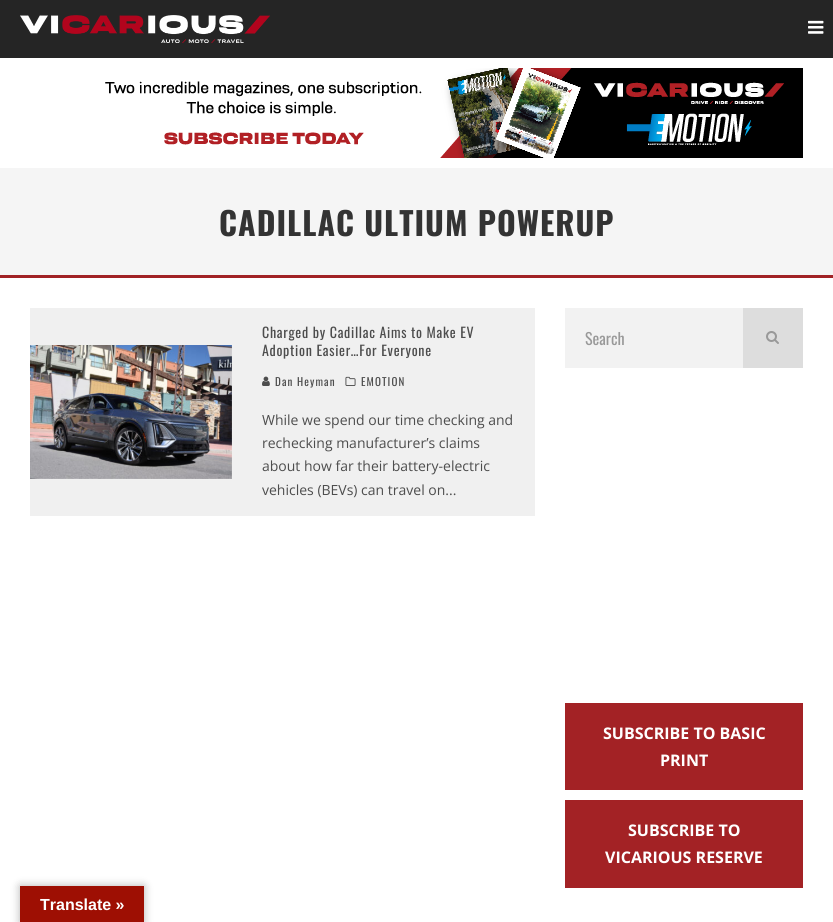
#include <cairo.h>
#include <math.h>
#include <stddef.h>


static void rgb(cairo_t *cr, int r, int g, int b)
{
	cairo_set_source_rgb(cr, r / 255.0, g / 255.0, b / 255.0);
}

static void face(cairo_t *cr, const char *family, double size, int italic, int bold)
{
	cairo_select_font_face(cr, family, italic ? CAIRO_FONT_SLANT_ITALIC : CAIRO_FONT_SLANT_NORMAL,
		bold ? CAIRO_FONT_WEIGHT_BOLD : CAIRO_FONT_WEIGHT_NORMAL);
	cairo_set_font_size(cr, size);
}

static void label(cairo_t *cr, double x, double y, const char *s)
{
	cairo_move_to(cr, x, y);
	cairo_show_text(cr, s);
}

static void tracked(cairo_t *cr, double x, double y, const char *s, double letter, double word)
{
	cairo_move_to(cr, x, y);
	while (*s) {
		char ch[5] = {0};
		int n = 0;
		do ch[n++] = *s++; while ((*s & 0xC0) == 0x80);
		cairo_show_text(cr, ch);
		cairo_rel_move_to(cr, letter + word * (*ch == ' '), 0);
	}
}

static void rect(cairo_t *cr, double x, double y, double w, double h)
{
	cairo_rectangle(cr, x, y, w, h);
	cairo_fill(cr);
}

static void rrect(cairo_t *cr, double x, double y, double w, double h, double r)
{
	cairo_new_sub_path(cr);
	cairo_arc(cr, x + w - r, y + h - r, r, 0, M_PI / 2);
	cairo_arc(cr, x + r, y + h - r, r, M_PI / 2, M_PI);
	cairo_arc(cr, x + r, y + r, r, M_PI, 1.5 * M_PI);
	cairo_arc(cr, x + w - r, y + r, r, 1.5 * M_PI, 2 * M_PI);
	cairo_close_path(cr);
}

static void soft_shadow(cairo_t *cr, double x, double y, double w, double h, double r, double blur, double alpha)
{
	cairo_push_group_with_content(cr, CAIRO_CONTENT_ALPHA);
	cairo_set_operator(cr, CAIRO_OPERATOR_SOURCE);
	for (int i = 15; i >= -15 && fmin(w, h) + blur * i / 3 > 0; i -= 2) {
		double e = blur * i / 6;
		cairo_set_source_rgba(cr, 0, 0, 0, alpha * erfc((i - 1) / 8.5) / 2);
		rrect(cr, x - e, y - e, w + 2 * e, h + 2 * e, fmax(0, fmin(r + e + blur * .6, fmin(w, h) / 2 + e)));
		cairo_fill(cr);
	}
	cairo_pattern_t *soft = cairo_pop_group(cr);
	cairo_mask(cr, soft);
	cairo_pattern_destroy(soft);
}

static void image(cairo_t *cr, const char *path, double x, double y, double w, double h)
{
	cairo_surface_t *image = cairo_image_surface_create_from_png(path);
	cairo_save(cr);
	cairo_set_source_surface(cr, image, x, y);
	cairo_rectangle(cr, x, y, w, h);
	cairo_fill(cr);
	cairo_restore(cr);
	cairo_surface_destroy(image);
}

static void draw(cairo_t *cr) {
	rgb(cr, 255, 255, 255);
	cairo_paint(cr);
	rgb(cr, 37, 37, 37);
	rect(cr, 0, 0, 833, 58);
	image(cr, "image0.png", 20, 15, 250, 28);
	image(cr, "image1.png", 808, 20, 16, 14);
	image(cr, "image2.png", 105, 68, 698, 90);
	rgb(cr, 245, 245, 245);
	rect(cr, 0, 168, 833, 107);
	rgb(cr, 161, 34, 37);
	rect(cr, 0, 275, 833, 3);
	face(cr, "Oswald", 32, 0, 1);
	rgb(cr, 51, 51, 51);
	tracked(cr, 219, 236, "CADILLAC ULTIUM POWERUP", 1, 0);
	rgb(cr, 240, 240, 240);
	rect(cr, 30, 308, 505, 208);
	image(cr, "image3.png", 30, 345, 202, 134);
	face(cr, "Oswald", 14, 0, 0);
	rgb(cr, 77, 77, 77);
	tracked(cr, 262, 338, "Charged by Cadillac Aims to Make EV", 0.7, 0);
	tracked(cr, 262, 356, "Adoption Easier…For Everyone", 0.7, 0);
	image(cr, "image4.png", 262, 376, 8, 10);
	face(cr, "Oswald", 11, 0, 0);
	tracked(cr, 275, 386, "Dan Heyman", 1.1, 0);
	image(cr, "image5.png", 345, 376, 11, 10);
	tracked(cr, 361, 386, "EMOTION", 1.1, 0);
	face(cr, "Open Sans", 14, 0, 0);
	label(cr, 262, 425, "While we spend our time checking and");
	label(cr, 262, 448, "rechecking manufacturer’s claims");
	label(cr, 262, 471, "about how far their battery-electric");
	label(cr, 262, 495, "vehicles (BEVs) can travel on...");
	rgb(cr, 242, 242, 242);
	rect(cr, 565, 308, 178, 60);
	face(cr, "Oswald", 16, 0, 0);
	rgb(cr, 153, 153, 153);
	label(cr, 585, 345, "Search");
	rgb(cr, 221, 221, 221);
	rect(cr, 743, 308, 60, 60);
	image(cr, "image6.png", 766, 331, 13, 13);
	rgb(cr, 163, 34, 37);
	rect(cr, 565, 703, 238, 87);
	face(cr, "Open Sans", 16, 0, 1);
	rgb(cr, 255, 255, 255);
	label(cr, 603, 739, "SUBSCRIBE TO BASIC");
	label(cr, 660, 766, "PRINT");
	rgb(cr, 163, 34, 37);
	rect(cr, 565, 800, 238, 88);
	rgb(cr, 255, 255, 255);
	label(cr, 628, 836, "SUBSCRIBE TO");
	label(cr, 605, 863, "VICARIOUS RESERVE");
	rgb(cr, 0, 0, 0);
	soft_shadow(cr, 20, 886, 124, 36, 0, 4.5, 0.3);
	rgb(cr, 158, 15, 3);
	rect(cr, 20, 886, 124, 36);
	face(cr, "Liberation Sans", 16, 0, 1);
	rgb(cr, 255, 255, 255);
	label(cr, 40, 910, "Translate »");
}

int main(void) {
	cairo_surface_t *surface = cairo_image_surface_create(CAIRO_FORMAT_RGB24, 833, 922);
	cairo_t *cr = cairo_create(surface);
	cairo_font_options_t *options = cairo_font_options_create();
	cairo_font_options_set_hint_metrics(options, CAIRO_HINT_METRICS_OFF);
	cairo_font_options_set_hint_style(options, CAIRO_HINT_STYLE_NONE);
	cairo_set_font_options(cr, options);
	cairo_set_miter_limit(cr, 4);
	draw(cr);
	cairo_surface_write_to_png(surface, "render.png");
	cairo_font_options_destroy(options);
	cairo_destroy(cr);
	cairo_surface_destroy(surface);
	return 0;
}
